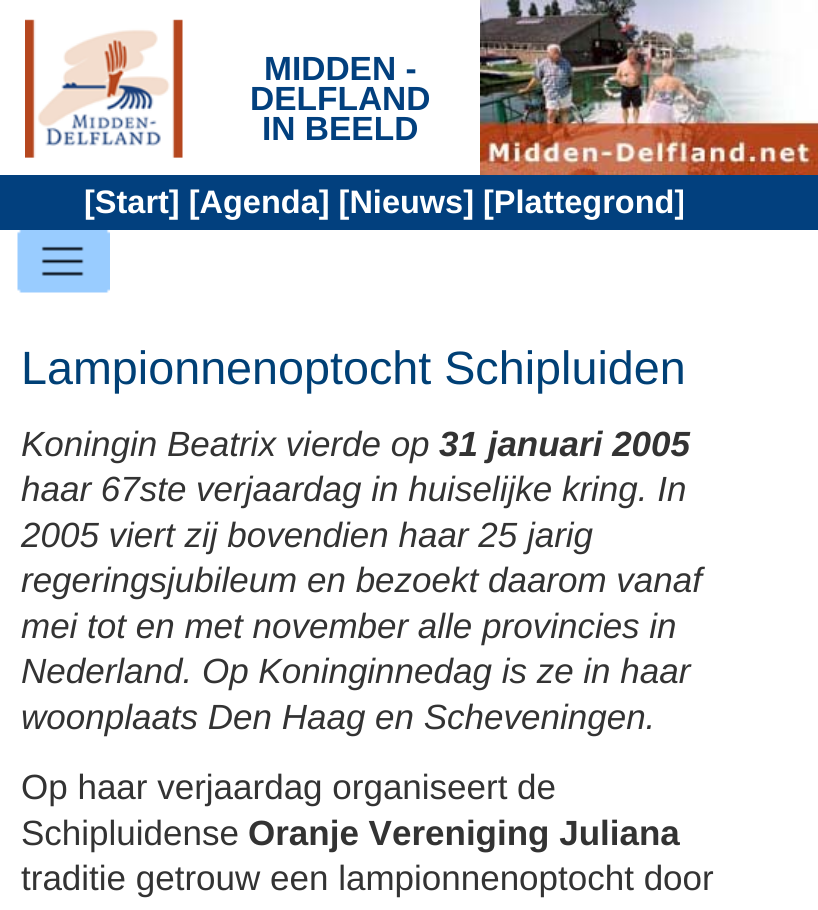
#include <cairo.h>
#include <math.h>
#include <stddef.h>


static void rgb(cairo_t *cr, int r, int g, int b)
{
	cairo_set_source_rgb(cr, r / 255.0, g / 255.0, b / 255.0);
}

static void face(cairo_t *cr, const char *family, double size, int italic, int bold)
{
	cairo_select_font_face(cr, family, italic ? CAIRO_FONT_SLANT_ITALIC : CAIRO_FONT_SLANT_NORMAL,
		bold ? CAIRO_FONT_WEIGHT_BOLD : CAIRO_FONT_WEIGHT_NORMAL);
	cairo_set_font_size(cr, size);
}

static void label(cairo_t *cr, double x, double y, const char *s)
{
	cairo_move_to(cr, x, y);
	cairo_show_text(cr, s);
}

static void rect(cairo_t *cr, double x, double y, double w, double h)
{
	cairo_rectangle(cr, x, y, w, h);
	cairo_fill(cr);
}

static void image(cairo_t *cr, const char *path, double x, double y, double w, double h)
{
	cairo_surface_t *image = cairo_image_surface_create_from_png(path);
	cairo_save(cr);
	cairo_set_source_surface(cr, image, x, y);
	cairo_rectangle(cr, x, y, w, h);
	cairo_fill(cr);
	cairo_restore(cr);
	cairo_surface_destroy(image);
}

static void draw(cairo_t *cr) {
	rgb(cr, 255, 255, 255);
	cairo_paint(cr);
	image(cr, "image0.png", 25, 19, 158, 139);
	face(cr, "Liberation Sans", 33.5, 0, 1);
	rgb(cr, 2, 64, 126);
	label(cr, 264, 80, "MIDDEN -");
	label(cr, 250, 110, "DELFLAND");
	label(cr, 262, 140, "IN BEELD");
	image(cr, "image1.png", 480, 0, 338, 175);
	rect(cr, 0, 175, 818, 55);
	face(cr, "Liberation Sans", 32.5, 0, 1);
	rgb(cr, 255, 255, 255);
	label(cr, 84, 213, "[Start] [Agenda] [Nieuws] [Plattegrond]");
	image(cr, "image2.png", 17, 230, 93, 63);
	face(cr, "Liberation Sans", 46.7, 0, 0);
	rgb(cr, 0, 64, 118);
	label(cr, 21, 384, "Lampionnenoptocht Schipluiden");
	face(cr, "Liberation Sans", 35, 1, 0);
	rgb(cr, 51, 51, 51);
	label(cr, 21, 456, "Koningin Beatrix vierde op");
	face(cr, "Liberation Sans", 35, 1, 1);
	label(cr, 439, 456, "31 januari 2005");
	face(cr, "Liberation Sans", 35, 1, 0);
	label(cr, 21, 501, "haar 67ste verjaardag in huiselijke kring. In");
	label(cr, 21, 547, "2005 viert zij bovendien haar 25 jarig");
	label(cr, 21, 592, "regeringsjubileum en bezoekt daarom vanaf");
	label(cr, 21, 638, "mei tot en met november alle provincies in");
	label(cr, 21, 683, "Nederland. Op Koninginnedag is ze in haar");
	label(cr, 21, 729, "woonplaats Den Haag en Scheveningen.");
	face(cr, "Liberation Sans", 35, 0, 0);
	label(cr, 21, 799, "Op haar verjaardag organiseert de");
	label(cr, 21, 845, "Schipluidense");
	face(cr, "Liberation Sans", 35, 0, 1);
	label(cr, 248, 845, "Oranje Vereniging Juliana");
	face(cr, "Liberation Sans", 35, 0, 0);
	label(cr, 21, 890, "traditie getrouw een lampionnenoptocht door");
}

int main(void) {
	cairo_surface_t *surface = cairo_image_surface_create(CAIRO_FORMAT_RGB24, 818, 910);
	cairo_t *cr = cairo_create(surface);
	cairo_font_options_t *options = cairo_font_options_create();
	cairo_font_options_set_hint_metrics(options, CAIRO_HINT_METRICS_OFF);
	cairo_font_options_set_hint_style(options, CAIRO_HINT_STYLE_NONE);
	cairo_set_font_options(cr, options);
	cairo_set_miter_limit(cr, 4);
	draw(cr);
	cairo_surface_write_to_png(surface, "render.png");
	cairo_font_options_destroy(options);
	cairo_destroy(cr);
	cairo_surface_destroy(surface);
	return 0;
}
